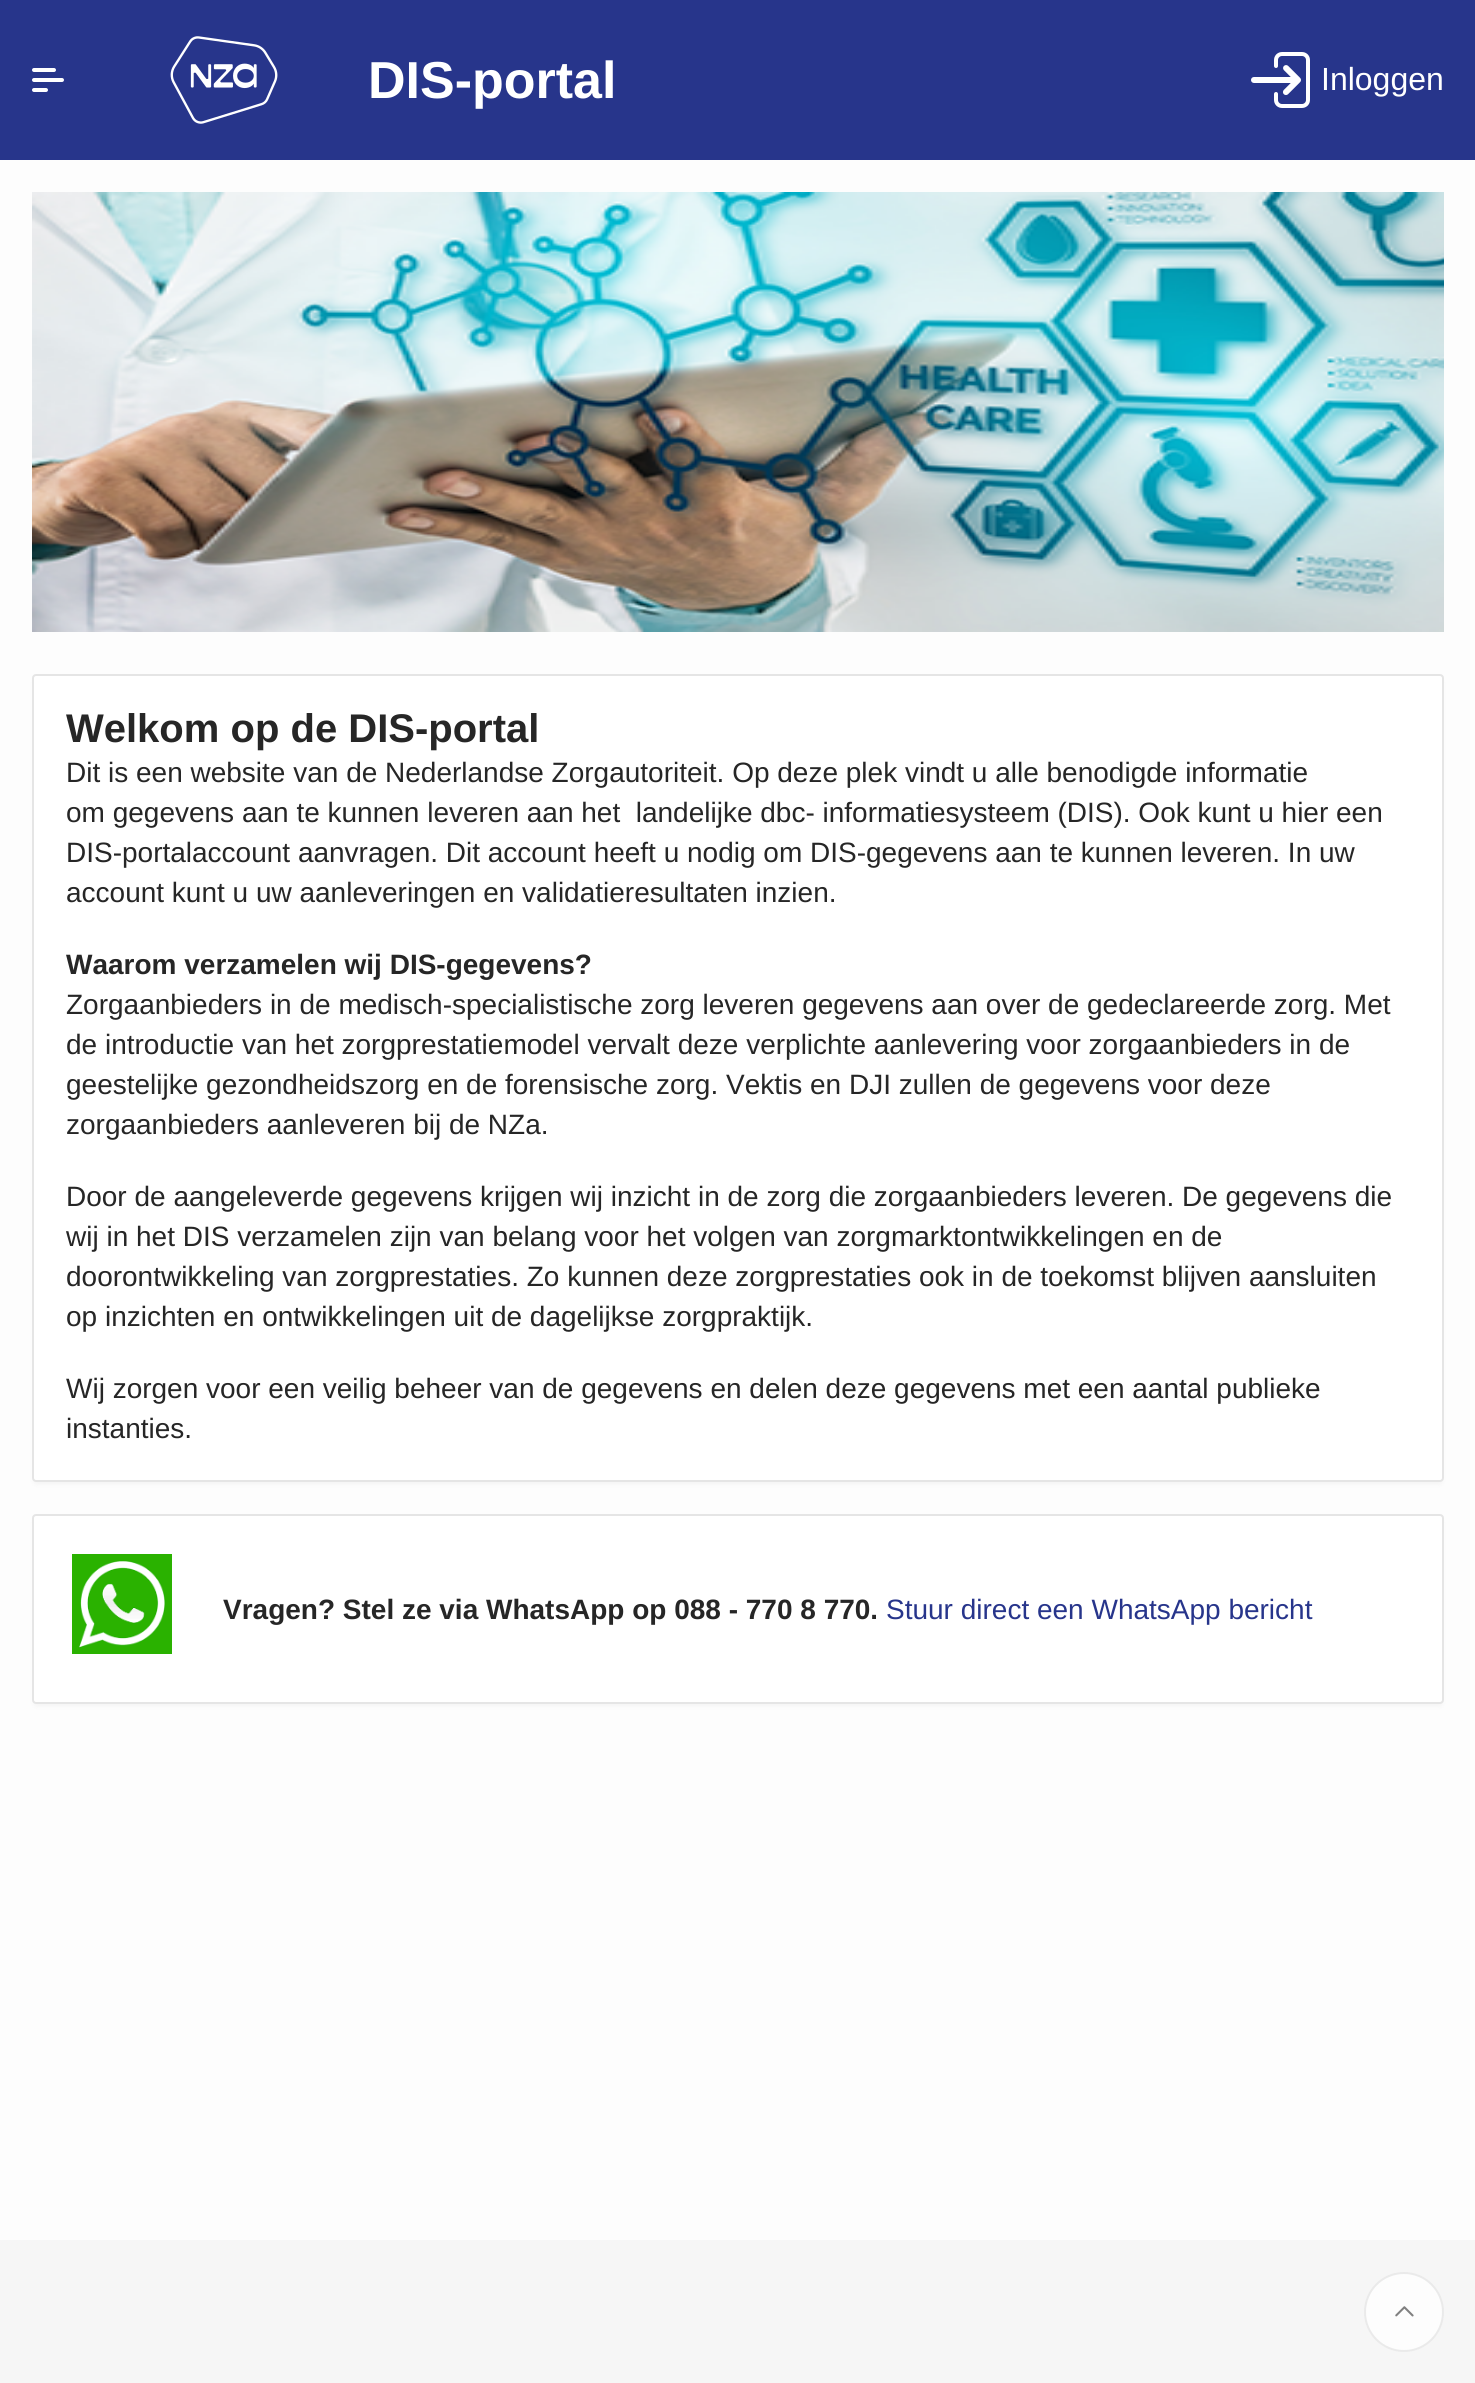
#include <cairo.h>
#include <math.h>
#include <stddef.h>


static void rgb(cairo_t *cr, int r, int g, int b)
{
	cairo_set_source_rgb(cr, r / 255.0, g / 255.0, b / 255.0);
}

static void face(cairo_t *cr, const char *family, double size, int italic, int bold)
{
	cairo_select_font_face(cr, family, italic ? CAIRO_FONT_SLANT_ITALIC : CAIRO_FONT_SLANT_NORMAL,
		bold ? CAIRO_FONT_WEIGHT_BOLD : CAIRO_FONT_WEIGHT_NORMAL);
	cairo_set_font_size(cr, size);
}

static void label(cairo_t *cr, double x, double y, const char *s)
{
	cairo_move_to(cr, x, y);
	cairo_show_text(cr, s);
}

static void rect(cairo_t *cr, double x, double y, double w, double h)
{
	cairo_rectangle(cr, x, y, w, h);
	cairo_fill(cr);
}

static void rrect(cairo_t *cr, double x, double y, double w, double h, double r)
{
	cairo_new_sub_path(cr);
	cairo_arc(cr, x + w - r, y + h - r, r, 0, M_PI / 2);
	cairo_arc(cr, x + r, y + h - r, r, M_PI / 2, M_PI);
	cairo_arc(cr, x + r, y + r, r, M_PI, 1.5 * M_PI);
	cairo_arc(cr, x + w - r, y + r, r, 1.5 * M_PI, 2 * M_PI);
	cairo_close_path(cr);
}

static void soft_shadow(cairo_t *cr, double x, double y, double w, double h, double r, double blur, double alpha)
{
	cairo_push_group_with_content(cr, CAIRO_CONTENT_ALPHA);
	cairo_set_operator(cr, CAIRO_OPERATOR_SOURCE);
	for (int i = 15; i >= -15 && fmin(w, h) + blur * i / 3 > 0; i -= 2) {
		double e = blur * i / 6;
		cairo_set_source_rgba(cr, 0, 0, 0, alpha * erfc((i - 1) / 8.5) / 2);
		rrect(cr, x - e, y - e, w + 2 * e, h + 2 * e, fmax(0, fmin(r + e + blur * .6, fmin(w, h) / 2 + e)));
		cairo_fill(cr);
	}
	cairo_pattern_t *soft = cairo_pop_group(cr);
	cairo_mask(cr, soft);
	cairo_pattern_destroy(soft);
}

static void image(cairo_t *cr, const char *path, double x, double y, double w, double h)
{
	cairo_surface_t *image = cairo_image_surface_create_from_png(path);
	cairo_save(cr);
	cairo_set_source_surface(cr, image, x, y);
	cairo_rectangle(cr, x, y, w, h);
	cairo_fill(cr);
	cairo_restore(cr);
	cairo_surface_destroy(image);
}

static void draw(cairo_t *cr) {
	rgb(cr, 253, 253, 253);
	cairo_paint(cr);
	rgb(cr, 39, 53, 139);
	rect(cr, 0, 0, 1475, 160);
	rgb(cr, 255, 255, 255);
	rrect(cr, 32, 78, 32, 4, 2);
	cairo_fill(cr);
	rrect(cr, 32, 68, 24, 4, 2);
	cairo_fill(cr);
	rrect(cr, 32, 88, 16, 4, 2);
	cairo_fill(cr);
	image(cr, "image0.png", 170, 36, 108, 88);
	face(cr, "Liberation Sans", 52, 0, 1);
	label(cr, 368, 98, "DIS-portal");
	image(cr, "image1.png", 1251, 52, 59, 56);
	face(cr, "Liberation Sans", 32, 0, 0);
	label(cr, 1321, 90, "Inloggen");
	image(cr, "image2.png", 32, 192, 1412, 440);
	rgb(cr, 0, 0, 0);
	soft_shadow(cr, 36, 682, 1404, 800, 0, 4, 0.07);
	rgb(cr, 255, 255, 255);
	rrect(cr, 33, 675, 1410, 806, 3);
	cairo_fill_preserve(cr);
	rgb(cr, 229, 229, 229);
	cairo_stroke(cr);
	face(cr, "Liberation Sans", 40, 0, 1);
	rgb(cr, 38, 38, 38);
	label(cr, 66, 742, "Welkom op de DIS-portal");
	face(cr, "Liberation Sans", 28, 0, 0);
	label(cr, 66, 782, "Dit is een website van de Nederlandse Zorgautoriteit. Op deze plek vindt u alle benodigde informatie");
	label(cr, 66, 822, "om gegevens aan te kunnen leveren aan het  landelijke dbc- informatiesysteem (DIS). Ook kunt u hier een");
	label(cr, 66, 862, "DIS-portalaccount aanvragen. Dit account heeft u nodig om DIS-gegevens aan te kunnen leveren. In uw");
	label(cr, 66, 902, "account kunt u uw aanleveringen en validatieresultaten inzien.");
	face(cr, "Liberation Sans", 28, 0, 1);
	label(cr, 66, 974, "Waarom verzamelen wij DIS-gegevens?");
	face(cr, "Liberation Sans", 28, 0, 0);
	label(cr, 66, 1014, "Zorgaanbieders in de medisch-specialistische zorg leveren gegevens aan over de gedeclareerde zorg. Met");
	label(cr, 66, 1054, "de introductie van het zorgprestatiemodel vervalt deze verplichte aanlevering voor zorgaanbieders in de");
	label(cr, 66, 1094, "geestelijke gezondheidszorg en de forensische zorg. Vektis en DJI zullen de gegevens voor deze");
	label(cr, 66, 1134, "zorgaanbieders aanleveren bij de NZa.");
	label(cr, 66, 1206, "Door de aangeleverde gegevens krijgen wij inzicht in de zorg die zorgaanbieders leveren. De gegevens die");
	label(cr, 66, 1246, "wij in het DIS verzamelen zijn van belang voor het volgen van zorgmarktontwikkelingen en de");
	label(cr, 66, 1286, "doorontwikkeling van zorgprestaties. Zo kunnen deze zorgprestaties ook in de toekomst blijven aansluiten");
	label(cr, 66, 1326, "op inzichten en ontwikkelingen uit de dagelijkse zorgpraktijk.");
	label(cr, 66, 1398, "Wij zorgen voor een veilig beheer van de gegevens en delen deze gegevens met een aantal publieke");
	label(cr, 66, 1438, "instanties.");
	rgb(cr, 0, 0, 0);
	soft_shadow(cr, 36, 1522, 1404, 182, 0, 4, 0.07);
	rgb(cr, 255, 255, 255);
	rrect(cr, 33, 1515, 1410, 188, 3);
	cairo_fill_preserve(cr);
	rgb(cr, 229, 229, 229);
	cairo_stroke(cr);
	image(cr, "image3.png", 72, 1554, 100, 100);
	face(cr, "Liberation Sans", 28, 0, 1);
	rgb(cr, 38, 38, 38);
	label(cr, 223, 1619, "Vragen? Stel ze via WhatsApp op 088 - 770 8 770.");
	face(cr, "Liberation Sans", 28, 0, 0);
	rgb(cr, 39, 53, 139);
	label(cr, 886, 1619, "Stuur direct een WhatsApp bericht");
	rgb(cr, 246, 246, 246);
	rect(cr, 0, 2240, 1475, 143);
	rgb(cr, 253, 253, 253);
	cairo_new_path(cr);
	cairo_arc(cr, 1404, 2312, 40, 0, 2 * M_PI);
	cairo_fill(cr);
	cairo_arc(cr, 1404, 2312, 39, 0, 2 * M_PI);
	cairo_set_source_rgba(cr, 0.243, 0.243, 0.243, 0.1);
	cairo_stroke(cr);
	image(cr, "image4.png", 1395, 2306, 19, 11);
}

int main(void) {
	cairo_surface_t *surface = cairo_image_surface_create(CAIRO_FORMAT_RGB24, 1475, 2383);
	cairo_t *cr = cairo_create(surface);
	cairo_font_options_t *options = cairo_font_options_create();
	cairo_font_options_set_hint_metrics(options, CAIRO_HINT_METRICS_OFF);
	cairo_font_options_set_hint_style(options, CAIRO_HINT_STYLE_NONE);
	cairo_set_font_options(cr, options);
	cairo_set_miter_limit(cr, 4);
	draw(cr);
	cairo_surface_write_to_png(surface, "render.png");
	cairo_font_options_destroy(options);
	cairo_destroy(cr);
	cairo_surface_destroy(surface);
	return 0;
}
